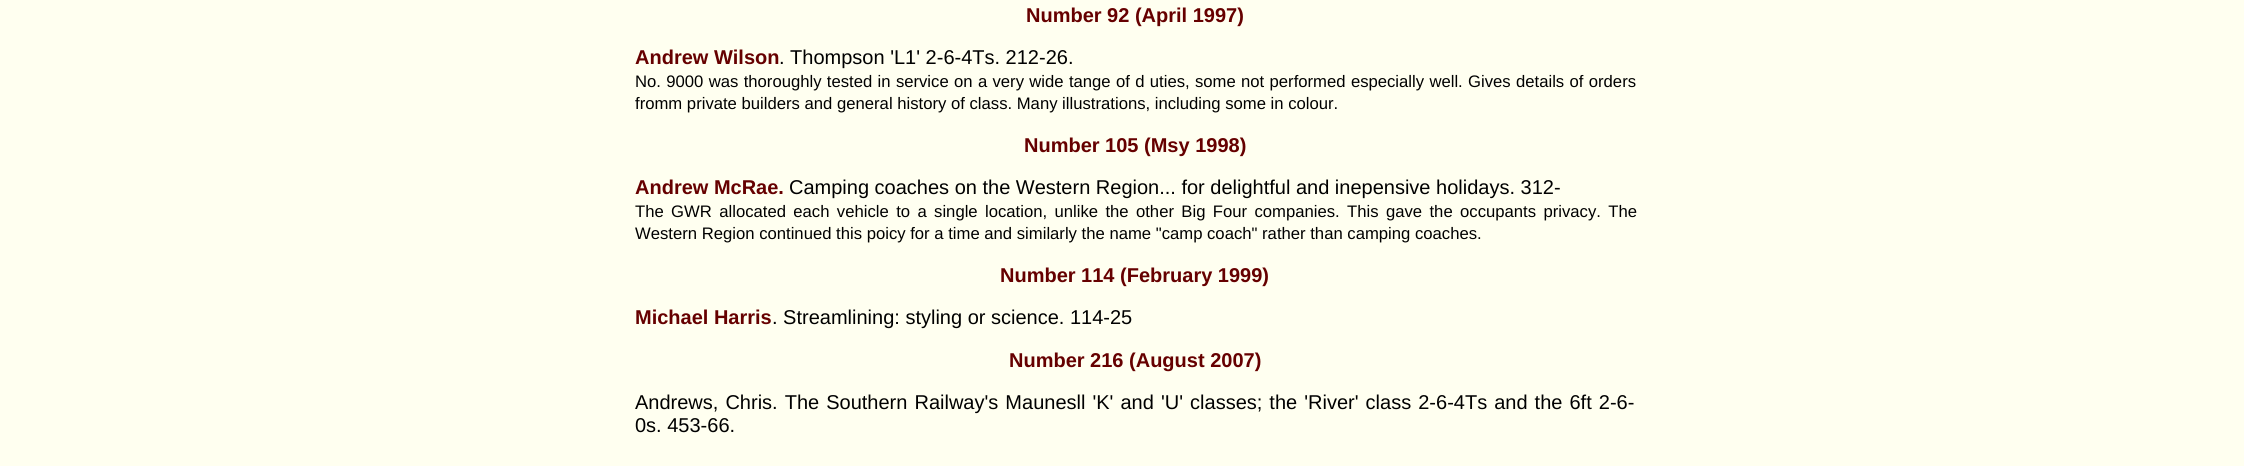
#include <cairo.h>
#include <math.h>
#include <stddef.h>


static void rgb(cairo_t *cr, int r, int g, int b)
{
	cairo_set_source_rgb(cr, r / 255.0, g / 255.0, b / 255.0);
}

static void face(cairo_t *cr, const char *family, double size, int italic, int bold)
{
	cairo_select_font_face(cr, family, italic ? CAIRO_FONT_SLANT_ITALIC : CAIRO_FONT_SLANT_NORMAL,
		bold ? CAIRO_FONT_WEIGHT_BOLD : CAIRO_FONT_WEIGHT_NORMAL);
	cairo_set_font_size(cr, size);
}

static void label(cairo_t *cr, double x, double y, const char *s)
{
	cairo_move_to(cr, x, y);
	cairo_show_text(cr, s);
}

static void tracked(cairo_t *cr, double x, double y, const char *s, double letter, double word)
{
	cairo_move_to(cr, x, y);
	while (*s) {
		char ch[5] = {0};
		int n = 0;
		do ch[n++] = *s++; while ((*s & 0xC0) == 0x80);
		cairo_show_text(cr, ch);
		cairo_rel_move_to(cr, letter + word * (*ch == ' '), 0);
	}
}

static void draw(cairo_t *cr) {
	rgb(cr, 255, 255, 240);
	cairo_paint(cr);
	face(cr, "Liberation Sans", 20, 0, 1);
	rgb(cr, 102, 0, 0);
	label(cr, 1026, 22, "Number 92 (April 1997)");
	label(cr, 635, 64, "Andrew Wilson");
	face(cr, "Liberation Sans", 20, 0, 0);
	rgb(cr, 0, 0, 0);
	label(cr, 779, 64, ". Thompson 'L1' 2-6-4Ts. 212-26.");
	face(cr, "Liberation Sans", 16.67, 0, 0);
	tracked(cr, 635, 87, "No. 9000 was thoroughly tested in service on a very wide tange of d uties, some not performed especially well. Gives details of orders", 0, 0.7);
	label(cr, 635, 109, "fromm private builders and general history of class. Many illustrations, including some in colour.");
	face(cr, "Liberation Sans", 20, 0, 1);
	rgb(cr, 102, 0, 0);
	label(cr, 1024, 152, "Number 105 (Msy 1998)");
	label(cr, 635, 194, "Andrew McRae.");
	face(cr, "Liberation Sans", 20, 0, 0);
	rgb(cr, 0, 0, 0);
	label(cr, 789, 194, "Camping coaches on the Western Region... for delightful and inepensive holidays. 312-");
	face(cr, "Liberation Sans", 16.67, 0, 0);
	tracked(cr, 635, 217, "The GWR allocated each vehicle to a single location, unlike the other Big Four companies. This gave the occupants privacy. The", 0, 2.75);
	label(cr, 635, 239, "Western Region continued this poicy for a time and similarly the name \"camp coach\" rather than camping coaches.");
	face(cr, "Liberation Sans", 20, 0, 1);
	rgb(cr, 102, 0, 0);
	label(cr, 1000, 282, "Number 114 (February 1999)");
	label(cr, 635, 324, "Michael Harris");
	face(cr, "Liberation Sans", 20, 0, 0);
	rgb(cr, 0, 0, 0);
	label(cr, 772, 324, ". Streamlining: styling or science. 114-25");
	face(cr, "Liberation Sans", 20, 0, 1);
	rgb(cr, 102, 0, 0);
	label(cr, 1009, 367, "Number 216 (August 2007)");
	face(cr, "Liberation Sans", 20, 0, 0);
	rgb(cr, 0, 0, 0);
	tracked(cr, 635, 409, "Andrews, Chris. The Southern Railway's Maunesll 'K' and 'U' classes; the 'River' class 2-6-4Ts and the 6ft 2-6-", 0, 1.5);
	label(cr, 635, 432, "0s. 453-66.");
}

int main(void) {
	cairo_surface_t *surface = cairo_image_surface_create(CAIRO_FORMAT_RGB24, 2244, 466);
	cairo_t *cr = cairo_create(surface);
	cairo_font_options_t *options = cairo_font_options_create();
	cairo_font_options_set_hint_metrics(options, CAIRO_HINT_METRICS_OFF);
	cairo_font_options_set_hint_style(options, CAIRO_HINT_STYLE_NONE);
	cairo_set_font_options(cr, options);
	cairo_set_miter_limit(cr, 4);
	draw(cr);
	cairo_surface_write_to_png(surface, "render.png");
	cairo_font_options_destroy(options);
	cairo_destroy(cr);
	cairo_surface_destroy(surface);
	return 0;
}
